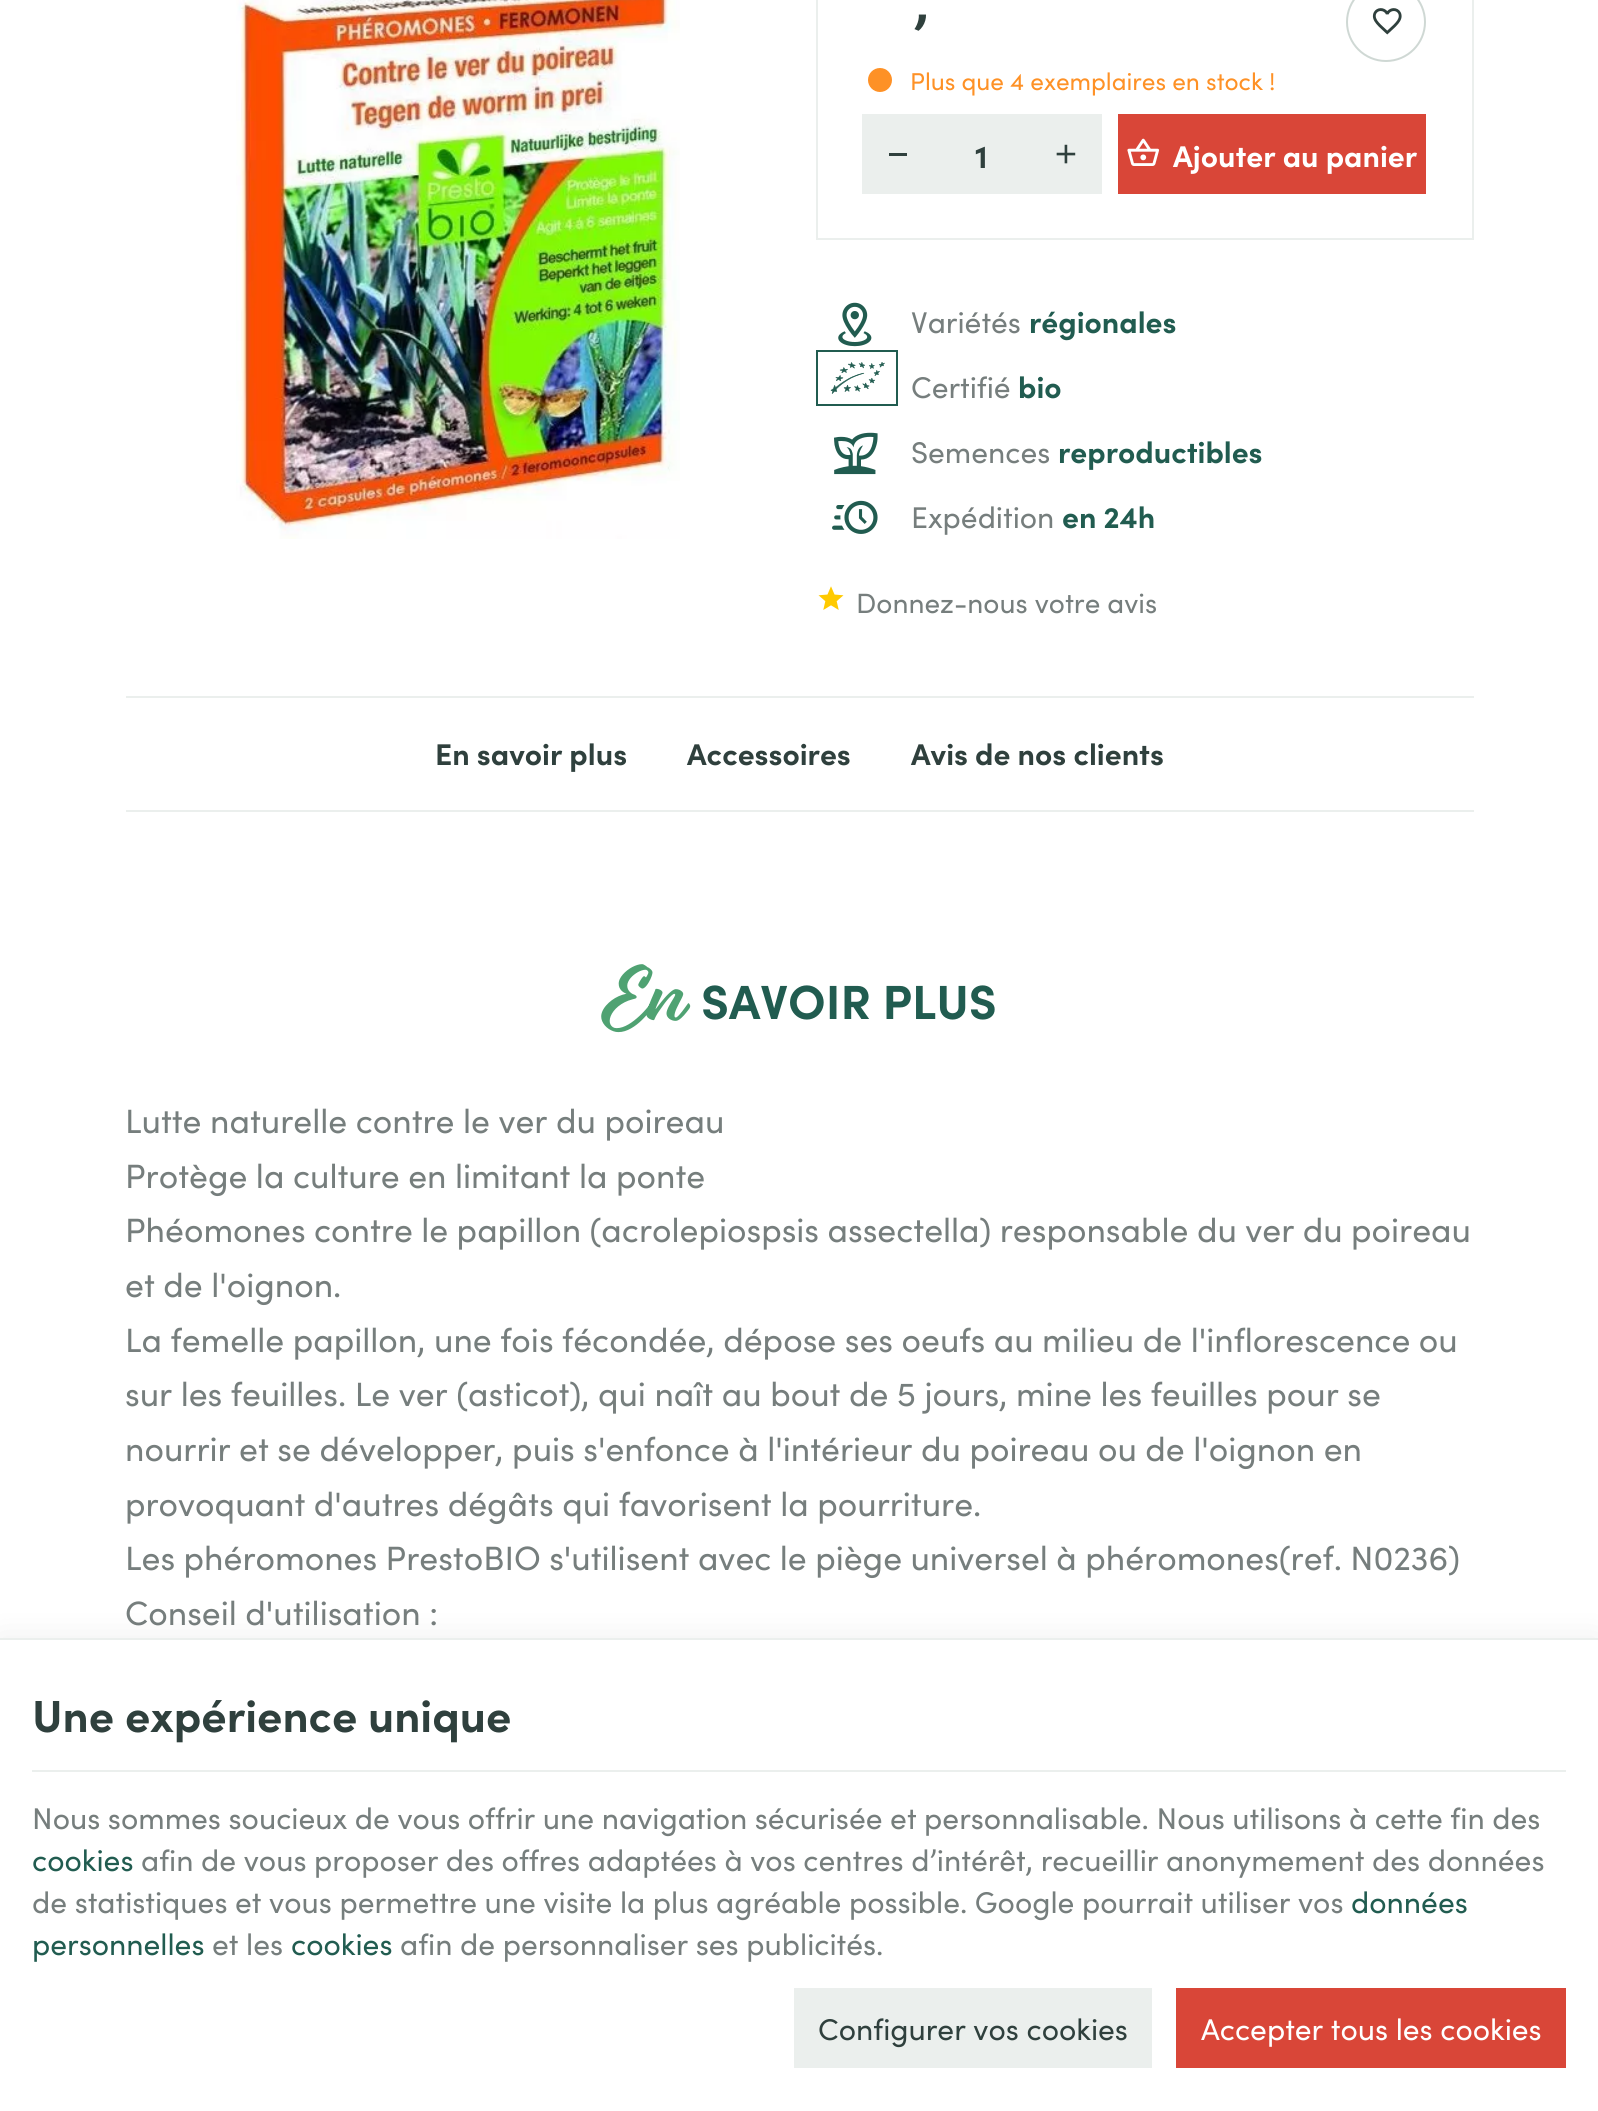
#include <cairo.h>
#include <math.h>
#include <stddef.h>


static void rgb(cairo_t *cr, int r, int g, int b)
{
	cairo_set_source_rgb(cr, r / 255.0, g / 255.0, b / 255.0);
}

static void face(cairo_t *cr, const char *family, double size, int italic, int bold)
{
	cairo_select_font_face(cr, family, italic ? CAIRO_FONT_SLANT_ITALIC : CAIRO_FONT_SLANT_NORMAL,
		bold ? CAIRO_FONT_WEIGHT_BOLD : CAIRO_FONT_WEIGHT_NORMAL);
	cairo_set_font_size(cr, size);
}

static void label(cairo_t *cr, double x, double y, const char *s)
{
	cairo_move_to(cr, x, y);
	cairo_show_text(cr, s);
}

static void tracked(cairo_t *cr, double x, double y, const char *s, double letter, double word)
{
	cairo_move_to(cr, x, y);
	while (*s) {
		char ch[5] = {0};
		int n = 0;
		do ch[n++] = *s++; while ((*s & 0xC0) == 0x80);
		cairo_show_text(cr, ch);
		cairo_rel_move_to(cr, letter + word * (*ch == ' '), 0);
	}
}

static void rect(cairo_t *cr, double x, double y, double w, double h)
{
	cairo_rectangle(cr, x, y, w, h);
	cairo_fill(cr);
}

static void rrect(cairo_t *cr, double x, double y, double w, double h, double r)
{
	cairo_new_sub_path(cr);
	cairo_arc(cr, x + w - r, y + h - r, r, 0, M_PI / 2);
	cairo_arc(cr, x + r, y + h - r, r, M_PI / 2, M_PI);
	cairo_arc(cr, x + r, y + r, r, M_PI, 1.5 * M_PI);
	cairo_arc(cr, x + w - r, y + r, r, 1.5 * M_PI, 2 * M_PI);
	cairo_close_path(cr);
}

static void soft_shadow(cairo_t *cr, double x, double y, double w, double h, double r, double blur, double alpha)
{
	cairo_push_group_with_content(cr, CAIRO_CONTENT_ALPHA);
	cairo_set_operator(cr, CAIRO_OPERATOR_SOURCE);
	for (int i = 15; i >= -15 && fmin(w, h) + blur * i / 3 > 0; i -= 2) {
		double e = blur * i / 6;
		cairo_set_source_rgba(cr, 0, 0, 0, alpha * erfc((i - 1) / 8.5) / 2);
		rrect(cr, x - e, y - e, w + 2 * e, h + 2 * e, fmax(0, fmin(r + e + blur * .6, fmin(w, h) / 2 + e)));
		cairo_fill(cr);
	}
	cairo_pattern_t *soft = cairo_pop_group(cr);
	cairo_mask(cr, soft);
	cairo_pattern_destroy(soft);
}

static void image(cairo_t *cr, const char *path, double x, double y, double w, double h)
{
	cairo_surface_t *image = cairo_image_surface_create_from_png(path);
	cairo_save(cr);
	cairo_set_source_surface(cr, image, x, y);
	cairo_rectangle(cr, x, y, w, h);
	cairo_fill(cr);
	cairo_restore(cr);
	cairo_surface_destroy(image);
}

static void draw(cairo_t *cr) {
	rgb(cr, 255, 255, 255);
	cairo_paint(cr);
	image(cr, "image0.png", 236, 0, 444, 539);
	cairo_rectangle(cr, 817, -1, 656, 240);
	rgb(cr, 235, 239, 237);
	cairo_stroke(cr);
	face(cr, "Sofia", 54, 0, 1);
	rgb(cr, 47, 64, 61);
	label(cr, 915, 22, ",");
	cairo_new_path(cr);
	cairo_arc(cr, 1386, 22, 39, 0, 2 * M_PI);
	rgb(cr, 207, 216, 212);
	cairo_stroke(cr);
	image(cr, "image1.png", 1372, 8, 30, 27);
	rgb(cr, 254, 145, 38);
	cairo_arc(cr, 880, 80, 12, 0, 2 * M_PI);
	cairo_fill(cr);
	face(cr, "Sofia", 24.4, 0, 0);
	label(cr, 910, 90, "Plus que 4 exemplaires en stock !");
	rgb(cr, 235, 239, 237);
	rect(cr, 862, 114, 72, 80);
	rgb(cr, 47, 64, 61);
	rect(cr, 889, 153, 18, 3);
	rgb(cr, 235, 239, 237);
	rect(cr, 934, 114, 168, 80);
	image(cr, "image2.png", 1056, 144, 20, 20);
	face(cr, "Sofia", 32, 0, 1);
	rgb(cr, 47, 64, 61);
	label(cr, 975, 168, "1");
	rgb(cr, 217, 70, 56);
	rect(cr, 1118, 114, 308, 80);
	image(cr, "image3.png", 1127, 138, 33, 28);
	face(cr, "Sofia", 30, 0, 1);
	rgb(cr, 255, 255, 255);
	label(cr, 1173, 167, "Ajouter au panier");
	image(cr, "image4.png", 838, 302, 34, 45);
	face(cr, "Sofia", 30, 0, 0);
	rgb(cr, 118, 126, 125);
	label(cr, 911, 333, "Variétés");
	face(cr, "Sofia", 30, 0, 1);
	rgb(cr, 33, 92, 80);
	label(cr, 1029, 333, "régionales");
	cairo_rectangle(cr, 817, 351, 80, 54);
	cairo_stroke(cr);
	image(cr, "image5.png", 830, 362, 55, 32);
	face(cr, "Sofia", 30, 0, 0);
	rgb(cr, 118, 126, 125);
	label(cr, 911, 398, "Certifié");
	face(cr, "Sofia", 30, 0, 1);
	rgb(cr, 33, 92, 80);
	label(cr, 1018, 398, "bio");
	image(cr, "image6.png", 834, 432, 44, 43);
	face(cr, "Sofia", 30, 0, 0);
	rgb(cr, 118, 126, 125);
	label(cr, 911, 463, "Semences");
	face(cr, "Sofia", 30, 0, 1);
	rgb(cr, 33, 92, 80);
	label(cr, 1058, 463, "reproductibles");
	image(cr, "image7.png", 832, 500, 46, 34);
	face(cr, "Sofia", 30, 0, 0);
	rgb(cr, 118, 126, 125);
	label(cr, 911, 528, "Expédition");
	face(cr, "Sofia", 30, 0, 1);
	rgb(cr, 33, 92, 80);
	label(cr, 1062, 528, "en 24h");
	image(cr, "image8.png", 818, 586, 26, 24);
	face(cr, "Sofia", 27.9, 0, 0);
	rgb(cr, 118, 126, 125);
	label(cr, 856, 613, "Donnez-nous votre avis");
	rgb(cr, 235, 239, 237);
	rect(cr, 126, 810, 1348, 2);
	rect(cr, 126, 696, 1348, 2);
	face(cr, "Sofia", 30, 0, 1);
	rgb(cr, 47, 64, 61);
	label(cr, 435, 765, "En savoir plus");
	label(cr, 687, 765, "Accessoires");
	label(cr, 911, 765, "Avis de nos clients");
	face(cr, "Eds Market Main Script", 72, 0, 0);
	rgb(cr, 79, 162, 114);
	label(cr, 602, 1019, "En");
	face(cr, "Sofia", 48, 0, 1);
	rgb(cr, 33, 92, 80);
	label(cr, 701, 1019, "SAVOIR PLUS");
	face(cr, "Sofia", 33.75, 0, 0);
	rgb(cr, 118, 126, 125);
	label(cr, 125, 1133, "Lutte naturelle contre le ver du poireau");
	label(cr, 125, 1188, "Protège la culture en limitant la ponte");
	tracked(cr, 125, 1242, "Phéomones contre le papillon (acrolepiospsis assectella) responsable du ver du poireau", 0, -0.1);
	label(cr, 125, 1297, "et de l'oignon.");
	label(cr, 125, 1352, "La femelle papillon, une fois fécondée, dépose ses oeufs au milieu de l'inflorescence ou");
	label(cr, 125, 1406, "sur les feuilles. Le ver (asticot), qui naît au bout de 5 jours, mine les feuilles pour se");
	label(cr, 125, 1461, "nourrir et se développer, puis s'enfonce à l'intérieur du poireau ou de l'oignon en");
	label(cr, 125, 1516, "provoquant d'autres dégâts qui favorisent la pourriture.");
	tracked(cr, 125, 1570, "Les phéromones PrestoBIO s'utilisent avec le piège universel à phéromones(ref. N0236)", 0, -0.1);
	label(cr, 125, 1625, "Conseil d'utilisation :");
	rgb(cr, 0, 0, 0);
	soft_shadow(cr, 0, 1638, 1598, 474, 0, 17, 0.07);
	rgb(cr, 255, 255, 255);
	rect(cr, 0, 1640, 1598, 471);
	rgb(cr, 235, 239, 237);
	rect(cr, 0, 1638, 1598, 2);
	rect(cr, 32, 1770, 1534, 2);
	face(cr, "Sofia", 45, 0, 1);
	rgb(cr, 47, 64, 61);
	label(cr, 32, 1732, "Une expérience unique");
	face(cr, "Sofia", 30, 0, 0);
	rgb(cr, 118, 126, 125);
	label(cr, 32, 1829, "Nous sommes soucieux de vous offrir une navigation sécurisée et personnalisable. Nous utilisons à cette fin des");
	rgb(cr, 33, 92, 80);
	label(cr, 32, 1871, "cookies");
	rgb(cr, 118, 126, 125);
	label(cr, 141, 1871, "afin de vous proposer des offres adaptées à vos centres d’intérêt, recueillir anonymement des données");
	label(cr, 32, 1913, "de statistiques et vous permettre une visite la plus agréable possible. Google pourrait utiliser vos");
	rgb(cr, 33, 92, 80);
	label(cr, 1351, 1913, "données");
	label(cr, 32, 1955, "personnelles");
	rgb(cr, 118, 126, 125);
	label(cr, 212, 1955, "et les");
	rgb(cr, 33, 92, 80);
	label(cr, 291, 1955, "cookies");
	rgb(cr, 118, 126, 125);
	label(cr, 400, 1955, "afin de personnaliser ses publicités.");
	rgb(cr, 235, 239, 237);
	rect(cr, 794, 1988, 358, 80);
	rgb(cr, 47, 64, 61);
	label(cr, 818, 2040, "Configurer vos cookies");
	rgb(cr, 217, 70, 56);
	rect(cr, 1176, 1988, 390, 80);
	rgb(cr, 255, 255, 255);
	label(cr, 1201, 2040, "Accepter tous les cookies");
}

int main(void) {
	cairo_surface_t *surface = cairo_image_surface_create(CAIRO_FORMAT_RGB24, 1598, 2111);
	cairo_t *cr = cairo_create(surface);
	cairo_font_options_t *options = cairo_font_options_create();
	cairo_font_options_set_hint_metrics(options, CAIRO_HINT_METRICS_OFF);
	cairo_font_options_set_hint_style(options, CAIRO_HINT_STYLE_NONE);
	cairo_set_font_options(cr, options);
	cairo_set_miter_limit(cr, 4);
	draw(cr);
	cairo_surface_write_to_png(surface, "render.png");
	cairo_font_options_destroy(options);
	cairo_destroy(cr);
	cairo_surface_destroy(surface);
	return 0;
}
